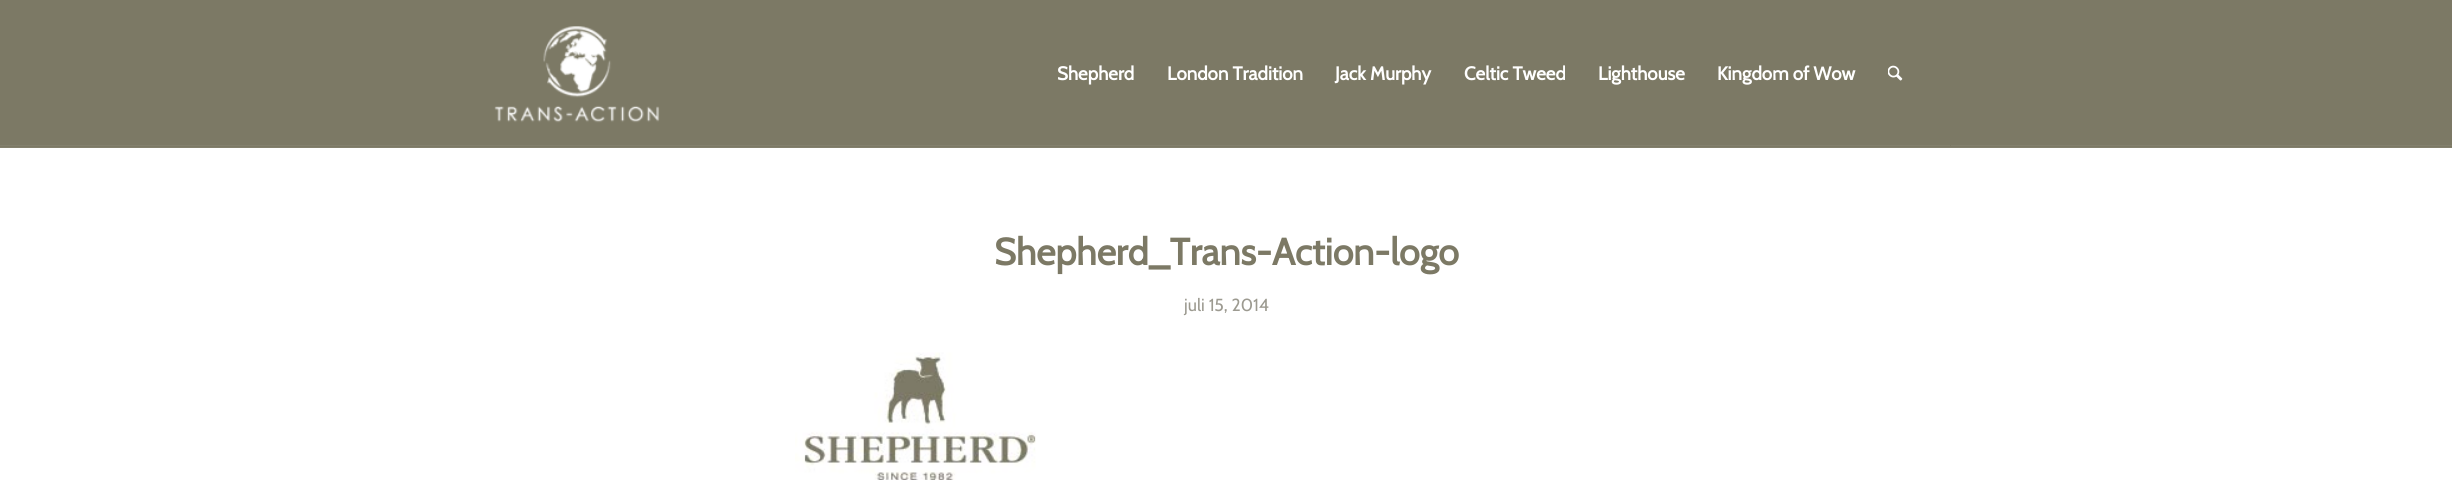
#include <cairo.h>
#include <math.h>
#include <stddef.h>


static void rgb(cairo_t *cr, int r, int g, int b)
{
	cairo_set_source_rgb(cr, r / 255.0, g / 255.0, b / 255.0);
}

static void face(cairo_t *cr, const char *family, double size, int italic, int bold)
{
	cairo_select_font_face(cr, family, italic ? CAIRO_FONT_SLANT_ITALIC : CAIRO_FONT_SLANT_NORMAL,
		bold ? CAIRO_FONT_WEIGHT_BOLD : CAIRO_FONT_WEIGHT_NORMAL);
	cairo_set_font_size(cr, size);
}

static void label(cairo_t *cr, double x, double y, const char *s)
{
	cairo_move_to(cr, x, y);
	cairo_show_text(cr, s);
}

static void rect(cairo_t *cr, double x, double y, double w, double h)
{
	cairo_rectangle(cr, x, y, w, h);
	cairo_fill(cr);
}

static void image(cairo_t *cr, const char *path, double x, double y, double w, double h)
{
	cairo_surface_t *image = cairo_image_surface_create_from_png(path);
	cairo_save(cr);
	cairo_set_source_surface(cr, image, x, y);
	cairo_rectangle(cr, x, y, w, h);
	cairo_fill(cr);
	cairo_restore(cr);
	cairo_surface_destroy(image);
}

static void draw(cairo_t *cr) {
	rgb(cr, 124, 121, 101);
	cairo_paint(cr);
	rgb(cr, 131, 128, 109);
	rect(cr, 0, 145, 2452, 3);
	rgb(cr, 124, 121, 101);
	rect(cr, 0, 146, 2452, 1);
	image(cr, "image0.png", 494, 26, 166, 97);
	rect(cr, 1950, 145, 1, 1);
	face(cr, "Cabin", 18.75, 0, 1);
	rgb(cr, 255, 255, 255);
	label(cr, 1057, 80, "Shepherd");
	label(cr, 1167, 80, "London Tradition");
	label(cr, 1335, 80, "Jack Murphy");
	label(cr, 1464, 80, "Celtic Tweed");
	label(cr, 1598, 80, "Lighthouse");
	label(cr, 1717, 80, "Kingdom of Wow");
	image(cr, "image1.png", 1888, 65, 15, 16);
	rect(cr, 0, 148, 2452, 332);
	face(cr, "Cabin", 37.5, 0, 1);
	rgb(cr, 124, 121, 101);
	label(cr, 994, 265, "Shepherd_Trans-Action-logo");
	face(cr, "Cabin", 17.5, 0, 0);
	rgb(cr, 156, 154, 144);
	label(cr, 1184, 311, "juli 15, 2014");
	image(cr, "image2.png", 795, 352, 241, 128);
}

int main(void) {
	cairo_surface_t *surface = cairo_image_surface_create(CAIRO_FORMAT_RGB24, 2452, 480);
	cairo_t *cr = cairo_create(surface);
	cairo_font_options_t *options = cairo_font_options_create();
	cairo_font_options_set_hint_metrics(options, CAIRO_HINT_METRICS_OFF);
	cairo_font_options_set_hint_style(options, CAIRO_HINT_STYLE_NONE);
	cairo_set_font_options(cr, options);
	cairo_set_miter_limit(cr, 4);
	draw(cr);
	cairo_surface_write_to_png(surface, "render.png");
	cairo_font_options_destroy(options);
	cairo_destroy(cr);
	cairo_surface_destroy(surface);
	return 0;
}
